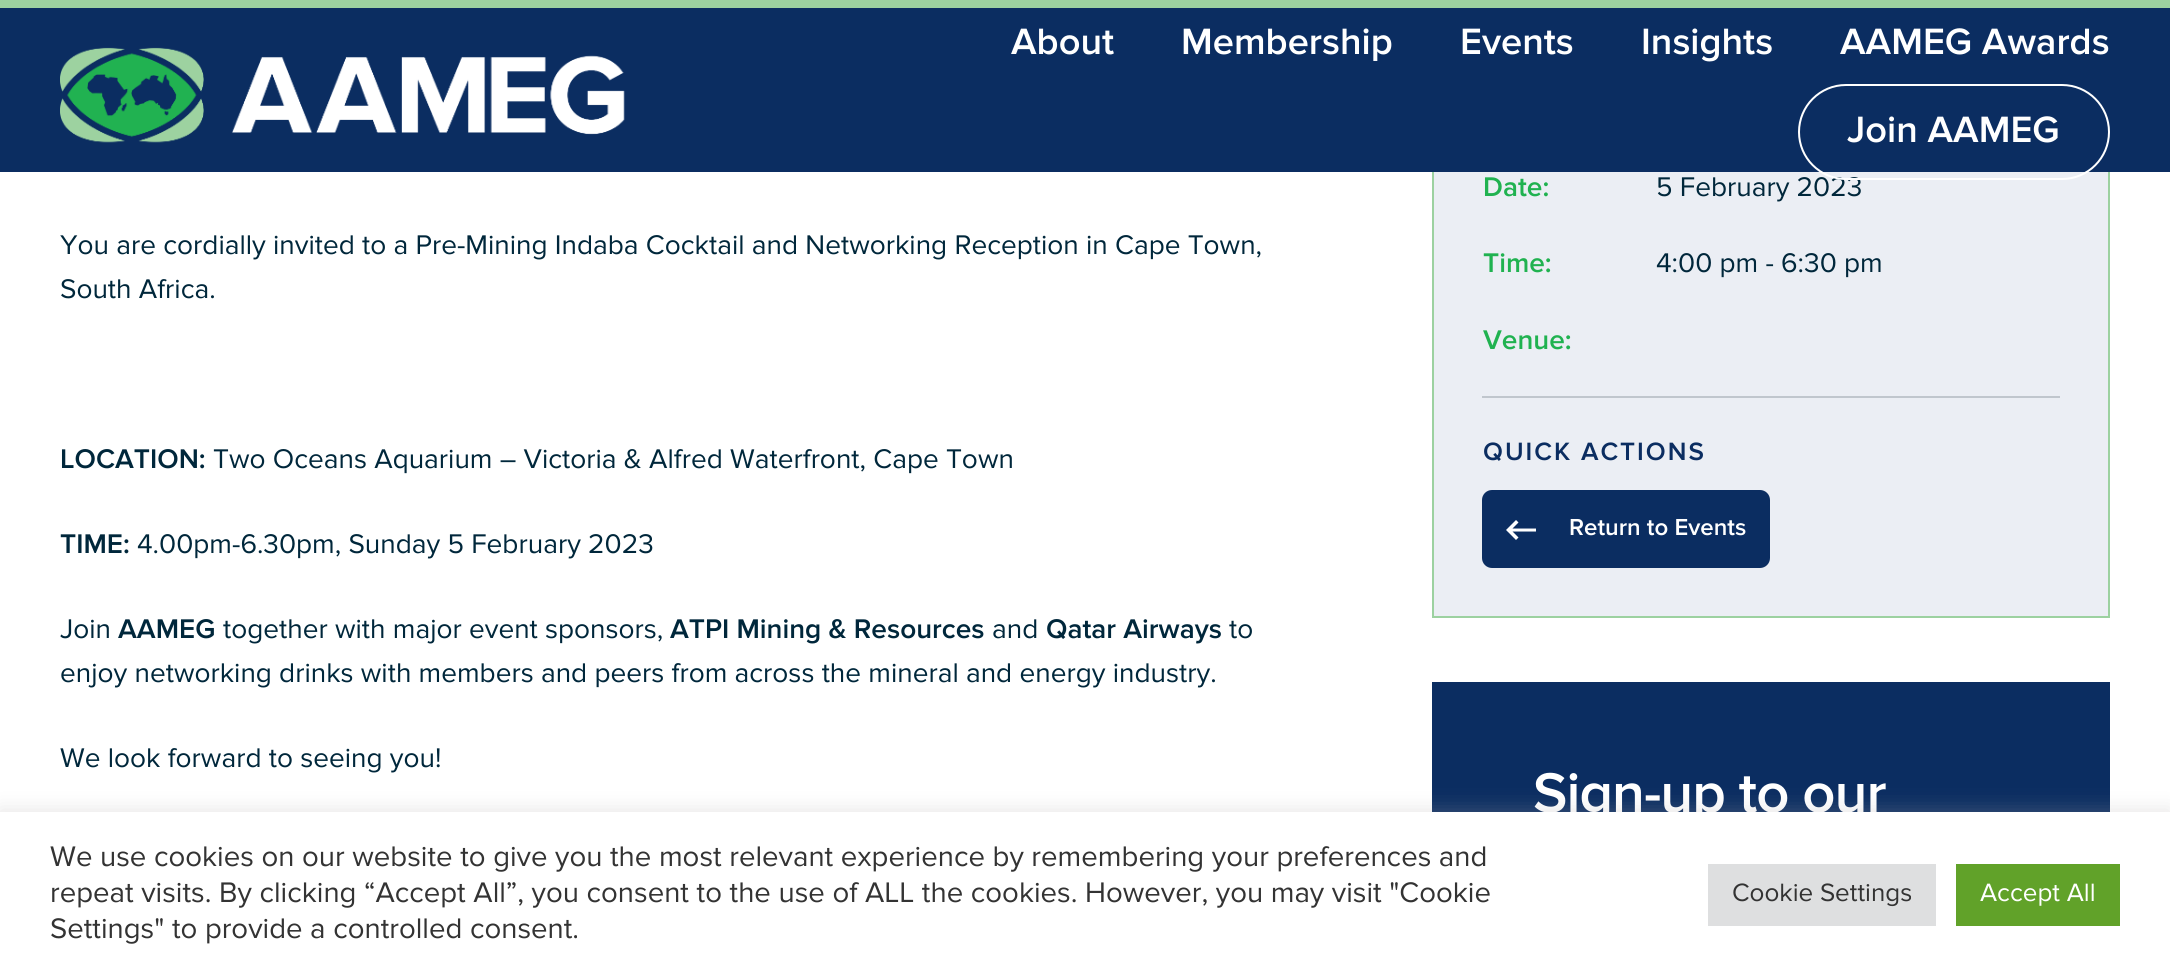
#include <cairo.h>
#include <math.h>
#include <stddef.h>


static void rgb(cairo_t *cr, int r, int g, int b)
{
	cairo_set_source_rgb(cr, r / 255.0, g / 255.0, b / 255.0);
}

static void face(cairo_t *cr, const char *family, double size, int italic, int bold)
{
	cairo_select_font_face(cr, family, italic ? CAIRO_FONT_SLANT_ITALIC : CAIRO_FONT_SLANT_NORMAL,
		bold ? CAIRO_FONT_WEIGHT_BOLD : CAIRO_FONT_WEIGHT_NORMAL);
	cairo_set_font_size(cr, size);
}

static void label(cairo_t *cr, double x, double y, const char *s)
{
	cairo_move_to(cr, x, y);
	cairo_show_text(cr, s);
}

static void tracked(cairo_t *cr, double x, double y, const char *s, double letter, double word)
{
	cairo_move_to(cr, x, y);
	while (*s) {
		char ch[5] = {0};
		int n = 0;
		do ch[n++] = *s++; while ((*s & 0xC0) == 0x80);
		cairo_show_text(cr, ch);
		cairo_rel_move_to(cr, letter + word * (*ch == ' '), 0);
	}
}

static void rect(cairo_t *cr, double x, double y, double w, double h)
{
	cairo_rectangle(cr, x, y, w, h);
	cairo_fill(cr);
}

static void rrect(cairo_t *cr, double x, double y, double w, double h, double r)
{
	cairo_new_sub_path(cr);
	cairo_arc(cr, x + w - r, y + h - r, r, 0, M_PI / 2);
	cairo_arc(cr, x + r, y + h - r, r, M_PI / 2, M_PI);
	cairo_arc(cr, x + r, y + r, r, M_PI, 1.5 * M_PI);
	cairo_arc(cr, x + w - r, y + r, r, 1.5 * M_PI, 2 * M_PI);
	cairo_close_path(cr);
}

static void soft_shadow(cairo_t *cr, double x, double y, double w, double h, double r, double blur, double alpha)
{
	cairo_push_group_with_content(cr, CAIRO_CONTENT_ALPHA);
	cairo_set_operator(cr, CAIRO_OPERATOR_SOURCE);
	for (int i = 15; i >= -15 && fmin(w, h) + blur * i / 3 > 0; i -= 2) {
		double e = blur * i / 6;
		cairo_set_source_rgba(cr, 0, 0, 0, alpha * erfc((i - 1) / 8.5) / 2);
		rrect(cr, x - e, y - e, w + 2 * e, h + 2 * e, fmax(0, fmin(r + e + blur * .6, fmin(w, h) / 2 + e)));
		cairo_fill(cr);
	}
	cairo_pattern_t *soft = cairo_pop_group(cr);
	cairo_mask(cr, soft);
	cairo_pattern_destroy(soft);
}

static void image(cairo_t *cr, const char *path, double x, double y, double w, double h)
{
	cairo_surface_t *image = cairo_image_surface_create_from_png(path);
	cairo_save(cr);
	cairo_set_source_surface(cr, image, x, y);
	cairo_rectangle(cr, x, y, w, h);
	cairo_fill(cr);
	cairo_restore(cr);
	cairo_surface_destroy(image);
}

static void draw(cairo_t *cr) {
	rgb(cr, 255, 255, 255);
	cairo_paint(cr);
	rgb(cr, 235, 238, 244);
	rect(cr, 1434, 172, 674, 444);
	cairo_rectangle(cr, 1433, 39, 676, 578);
	rgb(cr, 156, 209, 160);
	cairo_stroke(cr);
	rgb(cr, 11, 45, 97);
	rect(cr, 0, 8, 2170, 164);
	rgb(cr, 156, 209, 160);
	rect(cr, 0, 0, 2170, 8);
	image(cr, "image0.png", 60, 47, 565, 96);
	face(cr, "Proxima Nova SemiBold", 38, 0, 0);
	rgb(cr, 255, 255, 255);
	label(cr, 1011, 54, "About");
	label(cr, 1181, 54, "Membership");
	label(cr, 1460, 54, "Events");
	label(cr, 1641, 54, "Insights");
	label(cr, 1840, 54, "AAMEG Awards");
	face(cr, "Proxima Nova", 28, 0, 0);
	rgb(cr, 0, 39, 59);
	label(cr, 1656, 196, "5 February 2023");
	rrect(cr, 1799, 85, 310, 94, 47);
	rgb(cr, 255, 255, 255);
	cairo_stroke(cr);
	face(cr, "Proxima Nova SemiBold", 38, 0, 0);
	label(cr, 1847, 142, "Join AAMEG");
	face(cr, "Proxima Nova", 28, 0, 0);
	rgb(cr, 0, 39, 59);
	label(cr, 60, 254, "You are cordially invited to a Pre-Mining Indaba Cocktail and Networking Reception in Cape Town,");
	label(cr, 60, 298, "South Africa.");
	face(cr, "Proxima Nova SemiBold", 28, 0, 0);
	label(cr, 60, 468, "LOCATION:");
	face(cr, "Proxima Nova", 28, 0, 0);
	label(cr, 213, 468, "Two Oceans Aquarium – Victoria & Alfred Waterfront, Cape Town");
	face(cr, "Proxima Nova SemiBold", 28, 0, 0);
	label(cr, 60, 553, "TIME:");
	face(cr, "Proxima Nova", 28, 0, 0);
	label(cr, 137, 553, "4.00pm-6.30pm, Sunday 5 February 2023");
	label(cr, 60, 638, "Join");
	face(cr, "Proxima Nova SemiBold", 28, 0, 0);
	label(cr, 118, 638, "AAMEG");
	face(cr, "Proxima Nova", 28, 0, 0);
	label(cr, 223, 638, "together with major event sponsors,");
	face(cr, "Proxima Nova SemiBold", 28, 0, 0);
	label(cr, 670, 638, "ATPI Mining & Resources");
	face(cr, "Proxima Nova", 28, 0, 0);
	label(cr, 992, 638, "and");
	face(cr, "Proxima Nova SemiBold", 28, 0, 0);
	label(cr, 1046, 638, "Qatar Airways");
	face(cr, "Proxima Nova", 28, 0, 0);
	label(cr, 1229, 638, "to");
	label(cr, 60, 682, "enjoy networking drinks with members and peers from across the mineral and energy industry.");
	label(cr, 60, 767, "We look forward to seeing you!");
	face(cr, "Proxima Nova SemiBold", 28, 0, 0);
	rgb(cr, 32, 178, 80);
	label(cr, 1483, 196, "Date:");
	label(cr, 1483, 272, "Time:");
	face(cr, "Proxima Nova", 28, 0, 0);
	rgb(cr, 0, 39, 59);
	label(cr, 1656, 272, "4:00 pm - 6:30 pm");
	face(cr, "Proxima Nova SemiBold", 28, 0, 0);
	rgb(cr, 32, 178, 80);
	label(cr, 1483, 349, "Venue:");
	rgb(cr, 192, 198, 205);
	rect(cr, 1482, 396, 578, 2);
	face(cr, "Proxima Nova SemiBold", 26, 0, 0);
	rgb(cr, 11, 45, 97);
	tracked(cr, 1483, 460, "QUICK ACTIONS", 2, 0);
	rrect(cr, 1482, 490, 288, 78, 10);
	cairo_fill(cr);
	rgb(cr, 255, 255, 255);
	cairo_new_path(cr);
	cairo_move_to(cr, 1536, 528.5);
	cairo_line_to(cr, 1512.5, 528.5);
	cairo_line_to(cr, 1518.5, 522.5);
	cairo_line_to(cr, 1516, 520);
	cairo_line_to(cr, 1506, 530);
	cairo_line_to(cr, 1516, 540);
	cairo_line_to(cr, 1518.5, 537.5);
	cairo_line_to(cr, 1512.5, 531.5);
	cairo_line_to(cr, 1536, 531.5);
	cairo_close_path(cr);
	cairo_fill(cr);
	face(cr, "Proxima Nova SemiBold", 24, 0, 0);
	label(cr, 1569, 535, "Return to Events");
	rgb(cr, 11, 45, 97);
	rect(cr, 1432, 682, 678, 130);
	face(cr, "Proxima Nova SemiBold", 58, 0, 0);
	rgb(cr, 255, 255, 255);
	tracked(cr, 1533, 812, "Sign-up to our", -1, 0);
	rgb(cr, 172, 171, 171);
	soft_shadow(cr, 0, 810, 2170, 164, 0, 10, 0.3);
	rgb(cr, 255, 255, 255);
	rect(cr, 0, 812, 2170, 164);
	face(cr, "Proxima Nova", 29.35, 0, 0);
	rgb(cr, 51, 51, 51);
	label(cr, 50, 866, "We use cookies on our website to give you the most relevant experience by remembering your preferences and");
	label(cr, 50, 902, "repeat visits. By clicking “Accept All”, you consent to the use of ALL the cookies. However, you may visit \"Cookie");
	label(cr, 50, 938, "Settings\" to provide a controlled consent.");
	rgb(cr, 222, 223, 224);
	rect(cr, 1708, 864, 228, 62);
	face(cr, "Proxima Nova", 26, 0, 0);
	rgb(cr, 51, 51, 51);
	label(cr, 1732, 901, "Cookie Settings");
	rgb(cr, 97, 162, 41);
	rect(cr, 1956, 864, 164, 62);
	rgb(cr, 255, 255, 255);
	label(cr, 1980, 901, "Accept All");
}

int main(void) {
	cairo_surface_t *surface = cairo_image_surface_create(CAIRO_FORMAT_RGB24, 2170, 976);
	cairo_t *cr = cairo_create(surface);
	cairo_font_options_t *options = cairo_font_options_create();
	cairo_font_options_set_hint_metrics(options, CAIRO_HINT_METRICS_OFF);
	cairo_font_options_set_hint_style(options, CAIRO_HINT_STYLE_NONE);
	cairo_set_font_options(cr, options);
	cairo_set_miter_limit(cr, 4);
	draw(cr);
	cairo_surface_write_to_png(surface, "render.png");
	cairo_font_options_destroy(options);
	cairo_destroy(cr);
	cairo_surface_destroy(surface);
	return 0;
}
